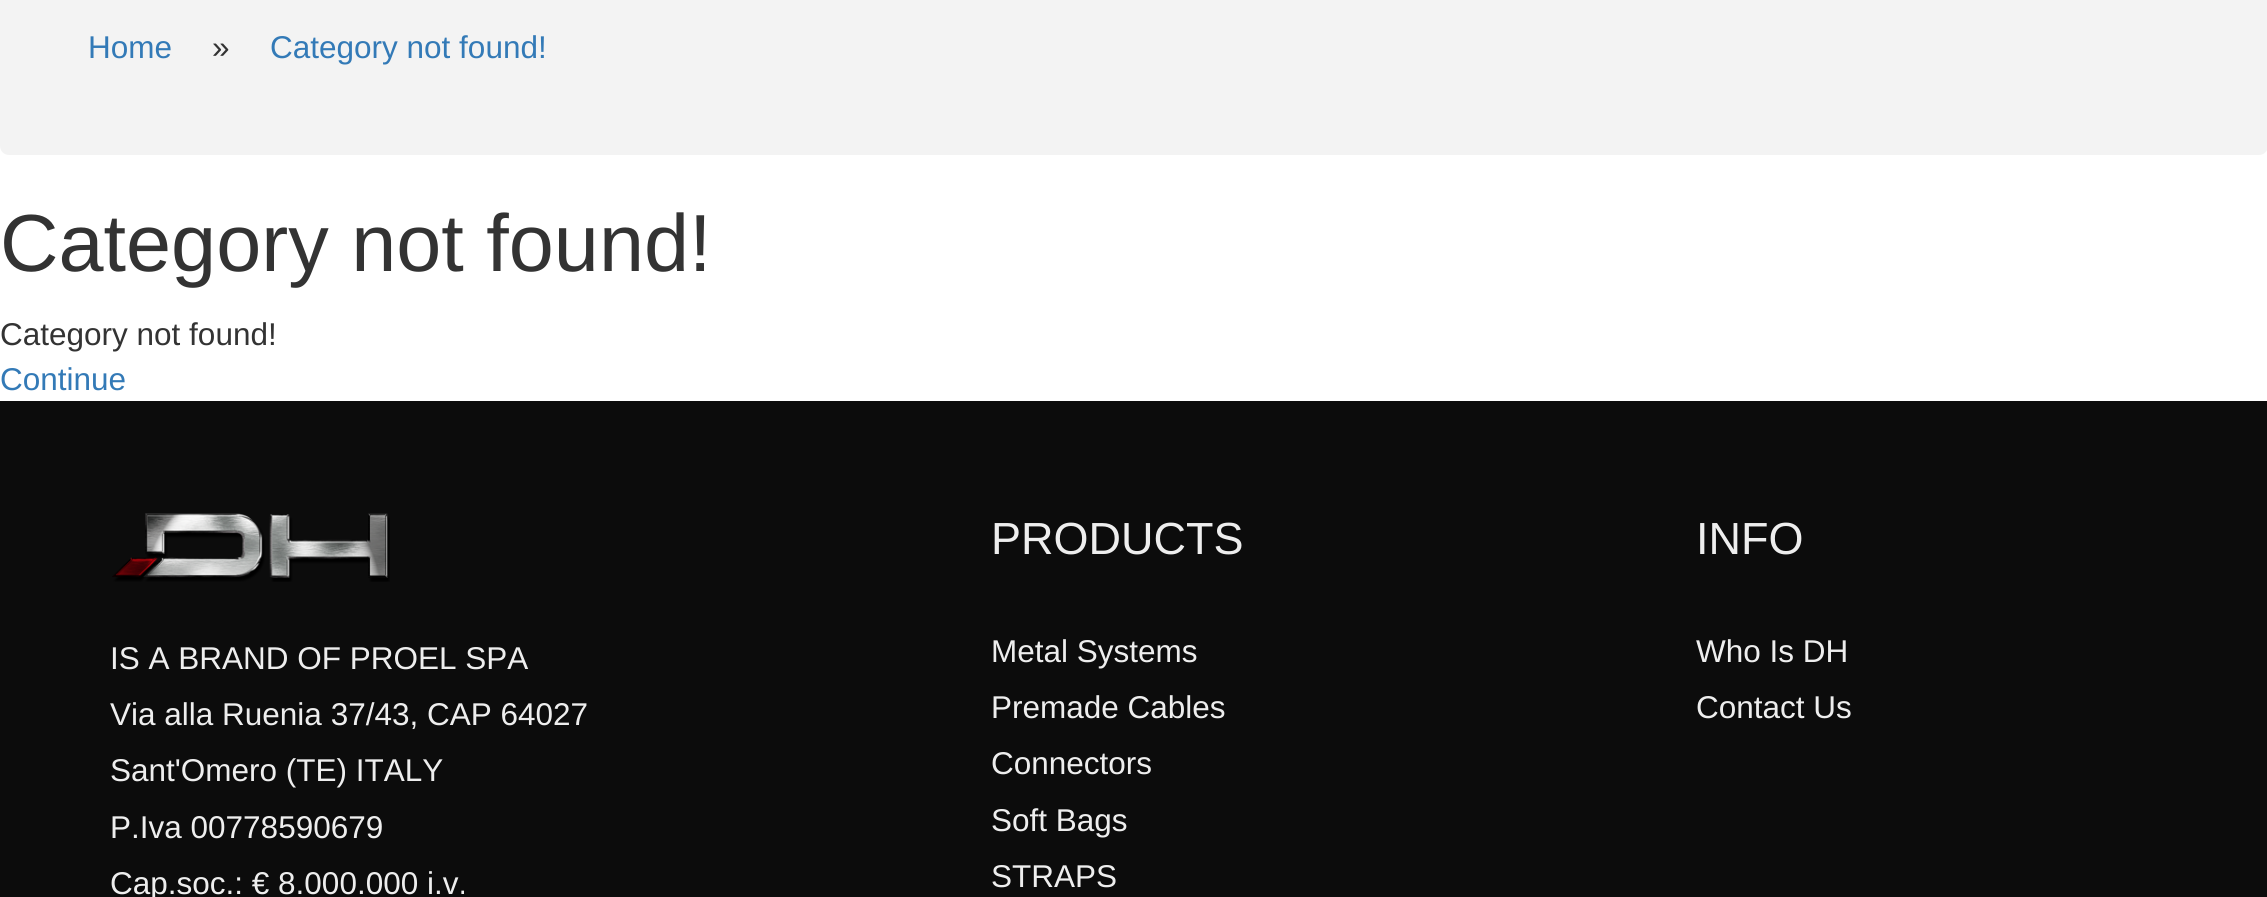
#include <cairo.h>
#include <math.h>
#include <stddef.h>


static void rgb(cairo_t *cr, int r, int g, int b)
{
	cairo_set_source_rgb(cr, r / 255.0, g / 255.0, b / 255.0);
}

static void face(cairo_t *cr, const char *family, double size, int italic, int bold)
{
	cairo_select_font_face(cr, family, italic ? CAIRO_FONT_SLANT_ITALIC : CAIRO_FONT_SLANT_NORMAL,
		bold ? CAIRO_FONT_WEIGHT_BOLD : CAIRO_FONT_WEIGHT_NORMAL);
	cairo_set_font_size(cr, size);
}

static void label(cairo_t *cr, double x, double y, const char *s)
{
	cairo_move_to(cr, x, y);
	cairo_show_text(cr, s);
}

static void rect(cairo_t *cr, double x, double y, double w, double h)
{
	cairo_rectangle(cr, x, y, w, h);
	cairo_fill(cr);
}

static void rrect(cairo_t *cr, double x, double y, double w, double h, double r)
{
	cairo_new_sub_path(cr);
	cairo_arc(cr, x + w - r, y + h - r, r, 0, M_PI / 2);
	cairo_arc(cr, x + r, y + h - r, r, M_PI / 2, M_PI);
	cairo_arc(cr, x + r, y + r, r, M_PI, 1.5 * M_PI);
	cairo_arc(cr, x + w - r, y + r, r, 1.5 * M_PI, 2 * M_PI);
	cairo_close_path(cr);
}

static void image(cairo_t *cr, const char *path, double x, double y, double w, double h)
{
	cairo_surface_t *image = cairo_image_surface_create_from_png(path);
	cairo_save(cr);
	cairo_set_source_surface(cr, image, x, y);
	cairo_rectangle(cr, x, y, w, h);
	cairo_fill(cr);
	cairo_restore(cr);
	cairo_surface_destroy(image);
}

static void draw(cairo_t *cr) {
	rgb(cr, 255, 255, 255);
	cairo_paint(cr);
	rgb(cr, 243, 243, 243);
	rrect(cr, 0, -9, 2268, 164, 9);
	cairo_fill(cr);
	face(cr, "Liberation Sans", 31.5, 0, 0);
	rgb(cr, 51, 122, 183);
	label(cr, 88, 58, "Home");
	rgb(cr, 51, 51, 51);
	label(cr, 212, 58, "»");
	rgb(cr, 51, 122, 183);
	label(cr, 270, 58, "Category not found!");
	face(cr, "Liberation Sans", 81, 0, 0);
	rgb(cr, 51, 51, 51);
	label(cr, 0, 271, "Category not found!");
	face(cr, "Liberation Sans", 31.5, 0, 0);
	label(cr, 0, 345, "Category not found!");
	rgb(cr, 51, 122, 183);
	label(cr, 0, 390, "Continue");
	rgb(cr, 12, 12, 12);
	rect(cr, 0, 401, 2267, 496);
	face(cr, "Liberation Sans", 45, 0, 0);
	rgb(cr, 238, 238, 238);
	label(cr, 991, 554, "PRODUCTS");
	face(cr, "Liberation Sans", 31.5, 0, 0);
	label(cr, 991, 662, "Metal Systems");
	label(cr, 991, 718, "Premade Cables");
	label(cr, 991, 774, "Connectors");
	label(cr, 991, 831, "Soft Bags");
	label(cr, 991, 887, "STRAPS");
	face(cr, "Liberation Sans", 45, 0, 0);
	label(cr, 1696, 554, "INFO");
	face(cr, "Liberation Sans", 31.5, 0, 0);
	label(cr, 1696, 662, "Who Is DH");
	label(cr, 1696, 718, "Contact Us");
	image(cr, "image0.png", 112, 513, 278, 69);
	label(cr, 110, 669, "IS A BRAND OF PROEL SPA");
	label(cr, 110, 725, "Via alla Ruenia 37/43, CAP 64027");
	label(cr, 110, 781, "Sant'Omero (TE) ITALY");
	label(cr, 110, 838, "P.Iva 00778590679");
	label(cr, 110, 894, "Cap.soc.: € 8.000.000 i.v.");
}

int main(void) {
	cairo_surface_t *surface = cairo_image_surface_create(CAIRO_FORMAT_RGB24, 2267, 897);
	cairo_t *cr = cairo_create(surface);
	cairo_font_options_t *options = cairo_font_options_create();
	cairo_font_options_set_hint_metrics(options, CAIRO_HINT_METRICS_OFF);
	cairo_font_options_set_hint_style(options, CAIRO_HINT_STYLE_NONE);
	cairo_set_font_options(cr, options);
	cairo_set_miter_limit(cr, 4);
	draw(cr);
	cairo_surface_write_to_png(surface, "render.png");
	cairo_font_options_destroy(options);
	cairo_destroy(cr);
	cairo_surface_destroy(surface);
	return 0;
}
